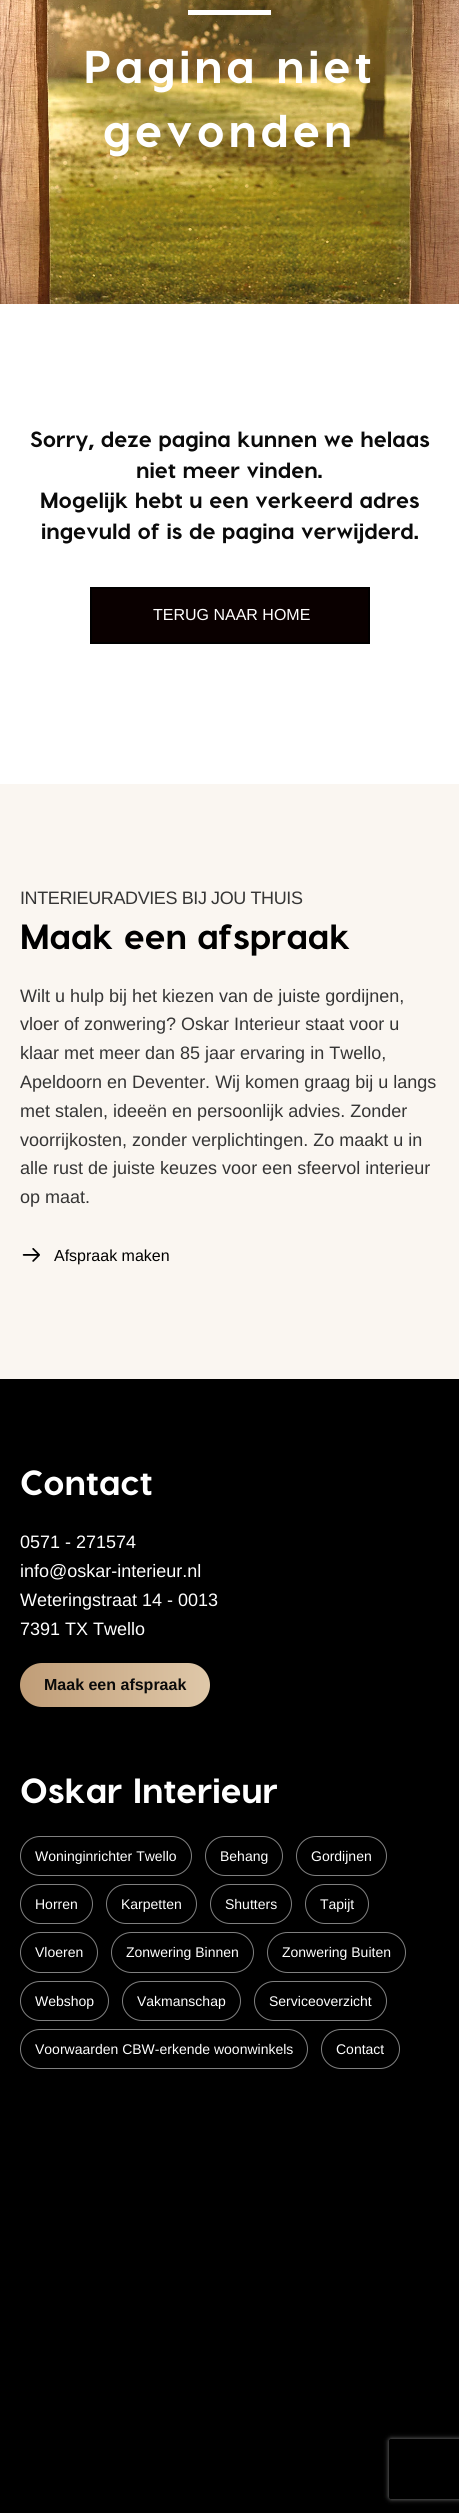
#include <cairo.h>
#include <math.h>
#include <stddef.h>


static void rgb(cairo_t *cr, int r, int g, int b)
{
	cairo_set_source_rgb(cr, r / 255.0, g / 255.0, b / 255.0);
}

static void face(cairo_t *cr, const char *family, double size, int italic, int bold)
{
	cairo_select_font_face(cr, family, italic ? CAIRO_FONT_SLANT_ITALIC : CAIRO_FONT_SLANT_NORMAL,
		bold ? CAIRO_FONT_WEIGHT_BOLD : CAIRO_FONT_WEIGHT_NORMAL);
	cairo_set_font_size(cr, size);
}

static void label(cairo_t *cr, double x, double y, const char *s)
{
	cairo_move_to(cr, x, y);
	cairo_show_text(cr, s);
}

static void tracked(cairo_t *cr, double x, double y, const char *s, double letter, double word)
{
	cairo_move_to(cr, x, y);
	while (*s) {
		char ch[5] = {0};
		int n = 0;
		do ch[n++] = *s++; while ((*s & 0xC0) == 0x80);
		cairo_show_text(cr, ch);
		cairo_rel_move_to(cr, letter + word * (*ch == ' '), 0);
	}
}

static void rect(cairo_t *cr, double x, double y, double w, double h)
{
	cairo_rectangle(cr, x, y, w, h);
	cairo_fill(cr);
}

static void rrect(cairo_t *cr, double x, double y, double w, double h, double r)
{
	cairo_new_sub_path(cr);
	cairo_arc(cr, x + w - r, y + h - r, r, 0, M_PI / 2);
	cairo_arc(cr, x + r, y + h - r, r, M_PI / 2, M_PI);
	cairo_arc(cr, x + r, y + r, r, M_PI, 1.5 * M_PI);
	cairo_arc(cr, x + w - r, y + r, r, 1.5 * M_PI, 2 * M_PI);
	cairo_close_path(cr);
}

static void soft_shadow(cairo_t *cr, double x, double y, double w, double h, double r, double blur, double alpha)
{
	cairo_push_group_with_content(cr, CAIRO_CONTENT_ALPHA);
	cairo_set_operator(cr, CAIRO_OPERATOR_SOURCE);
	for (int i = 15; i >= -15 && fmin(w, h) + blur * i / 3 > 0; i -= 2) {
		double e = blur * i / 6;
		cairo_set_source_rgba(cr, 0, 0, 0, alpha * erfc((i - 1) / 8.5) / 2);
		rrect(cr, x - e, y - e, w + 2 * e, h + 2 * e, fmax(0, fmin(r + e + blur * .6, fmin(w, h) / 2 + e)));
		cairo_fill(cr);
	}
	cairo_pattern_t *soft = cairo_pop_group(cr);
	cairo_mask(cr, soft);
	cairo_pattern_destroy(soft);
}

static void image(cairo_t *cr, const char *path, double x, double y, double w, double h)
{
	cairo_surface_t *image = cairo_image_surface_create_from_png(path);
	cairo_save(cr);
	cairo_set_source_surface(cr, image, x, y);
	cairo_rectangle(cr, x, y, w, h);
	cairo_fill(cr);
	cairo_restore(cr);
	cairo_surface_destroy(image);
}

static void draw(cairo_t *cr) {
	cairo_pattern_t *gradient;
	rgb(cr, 255, 255, 255);
	cairo_paint(cr);
	image(cr, "image0.png", 0, 0, 459, 304);
	rgb(cr, 255, 255, 255);
	rect(cr, 188, 10, 83, 5);
	face(cr, "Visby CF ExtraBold", 46, 0, 0);
	tracked(cr, 84, 83, "Pagina niet", 4, 0);
	tracked(cr, 103, 147, "gevonden", 4, 0);
	face(cr, "Visby CF ExtraBold", 22, 0, 0);
	rgb(cr, 10, 10, 10);
	label(cr, 30, 447, "Sorry, deze pagina kunnen we helaas");
	label(cr, 136, 478, "niet meer vinden.");
	label(cr, 40, 508, "Mogelijk hebt u een verkeerd adres");
	label(cr, 41, 539, "ingevuld of is de pagina verwijderd.");
	rgb(cr, 10, 0, 0);
	cairo_rectangle(cr, 91, 588, 278, 55);
	cairo_fill_preserve(cr);
	rgb(cr, 0, 0, 0);
	cairo_stroke(cr);
	face(cr, "Liberation Sans", 16, 0, 0);
	rgb(cr, 255, 255, 255);
	label(cr, 153, 620, "TERUG NAAR HOME");
	rgb(cr, 250, 246, 241);
	rect(cr, 0, 784, 459, 595);
	face(cr, "Liberation Sans", 18, 0, 0);
	rgb(cr, 53, 53, 53);
	tracked(cr, 20, 904, "INTERIEURADVIES BIJ JOU THUIS", -0.4, 0);
	face(cr, "Visby CF ExtraBold", 35, 0, 0);
	rgb(cr, 0, 0, 0);
	label(cr, 20, 949, "Maak een afspraak");
	face(cr, "Liberation Sans", 18, 0, 0);
	rgb(cr, 53, 53, 53);
	label(cr, 20, 1002, "Wilt u hulp bij het kiezen van de juiste gordijnen,");
	label(cr, 20, 1030, "vloer of zonwering? Oskar Interieur staat voor u");
	label(cr, 20, 1059, "klaar met meer dan 85 jaar ervaring in Twello,");
	label(cr, 20, 1088, "Apeldoorn en Deventer. Wij komen graag bij u langs");
	label(cr, 20, 1117, "met stalen, ideeën en persoonlijk advies. Zonder");
	label(cr, 20, 1146, "voorrijkosten, zonder verplichtingen. Zo maakt u in");
	label(cr, 20, 1174, "alle rust de juiste keuzes voor een sfeervol interieur");
	label(cr, 20, 1203, "op maat.");
	image(cr, "image1.png", 22, 1248, 18, 14);
	face(cr, "Liberation Sans", 16, 0, 0);
	rgb(cr, 0, 0, 0);
	label(cr, 54, 1261, "Afspraak maken");
	rect(cr, 0, 1379, 459, 1134);
	face(cr, "Visby CF ExtraBold", 35, 0, 0);
	rgb(cr, 255, 255, 255);
	label(cr, 20, 1495, "Contact");
	face(cr, "Liberation Sans", 18, 0, 0);
	label(cr, 20, 1548, "0571 - 271574");
	label(cr, 20, 1577, "info@oskar-interieur.nl");
	label(cr, 20, 1606, "Weteringstraat 14 - 0013");
	label(cr, 20, 1635, "7391 TX Twello");
	gradient = cairo_pattern_create_linear(20, 1685, 210, 1685);
	cairo_pattern_add_color_stop_rgba(gradient, 0, 0.753, 0.616, 0.467, 1);
	cairo_pattern_add_color_stop_rgba(gradient, 1, 0.875, 0.784, 0.663, 1);
	cairo_set_source(cr, gradient);
	cairo_pattern_destroy(gradient);
	rrect(cr, 20, 1663, 190, 44, 22);
	cairo_fill(cr);
	face(cr, "Liberation Sans", 16, 0, 1);
	rgb(cr, 10, 10, 10);
	label(cr, 44, 1690, "Maak een afspraak");
	face(cr, "Visby CF ExtraBold", 35, 0, 0);
	rgb(cr, 255, 255, 255);
	label(cr, 20, 1803, "Oskar Interieur");
	rrect(cr, 20.5, 1836.5, 171, 39, 19.5);
	rgb(cr, 128, 128, 128);
	cairo_set_line_width(cr, 1);
	cairo_stroke(cr);
	face(cr, "Liberation Sans", 14, 0, 0);
	rgb(cr, 255, 255, 255);
	label(cr, 35, 1861, "Woninginrichter Twello");
	rrect(cr, 205.5, 1836.5, 77, 39, 19.5);
	rgb(cr, 128, 128, 128);
	cairo_stroke(cr);
	rgb(cr, 255, 255, 255);
	label(cr, 220, 1861, "Behang");
	rrect(cr, 296.5, 1836.5, 90, 39, 19.5);
	rgb(cr, 128, 128, 128);
	cairo_stroke(cr);
	rgb(cr, 255, 255, 255);
	label(cr, 311, 1861, "Gordijnen");
	rrect(cr, 20.5, 1884.5, 72, 39, 19.5);
	rgb(cr, 128, 128, 128);
	cairo_stroke(cr);
	rgb(cr, 255, 255, 255);
	label(cr, 35, 1909, "Horren");
	rrect(cr, 106.5, 1884.5, 90, 39, 19.5);
	rgb(cr, 128, 128, 128);
	cairo_stroke(cr);
	rgb(cr, 255, 255, 255);
	label(cr, 121, 1909, "Karpetten");
	rrect(cr, 210.5, 1884.5, 81, 39, 19.5);
	rgb(cr, 128, 128, 128);
	cairo_stroke(cr);
	rgb(cr, 255, 255, 255);
	label(cr, 225, 1909, "Shutters");
	rrect(cr, 305.5, 1884.5, 63, 39, 19.5);
	rgb(cr, 128, 128, 128);
	cairo_stroke(cr);
	rgb(cr, 255, 255, 255);
	label(cr, 320, 1909, "Tapijt");
	rrect(cr, 20.5, 1932.5, 77, 40, 20);
	rgb(cr, 128, 128, 128);
	cairo_stroke(cr);
	rgb(cr, 255, 255, 255);
	label(cr, 35, 1957, "Vloeren");
	rrect(cr, 111.5, 1932.5, 142, 40, 20);
	rgb(cr, 128, 128, 128);
	cairo_stroke(cr);
	rgb(cr, 255, 255, 255);
	label(cr, 126, 1957, "Zonwering Binnen");
	rrect(cr, 267.5, 1932.5, 138, 40, 20);
	rgb(cr, 128, 128, 128);
	cairo_stroke(cr);
	rgb(cr, 255, 255, 255);
	label(cr, 282, 1957, "Zonwering Buiten");
	rrect(cr, 20.5, 1981.5, 88, 39, 19.5);
	rgb(cr, 128, 128, 128);
	cairo_stroke(cr);
	rgb(cr, 255, 255, 255);
	label(cr, 35, 2006, "Webshop");
	rrect(cr, 122.5, 1981.5, 118, 39, 19.5);
	rgb(cr, 128, 128, 128);
	cairo_stroke(cr);
	rgb(cr, 255, 255, 255);
	label(cr, 137, 2006, "Vakmanschap");
	rrect(cr, 254.5, 1981.5, 132, 39, 19.5);
	rgb(cr, 128, 128, 128);
	cairo_stroke(cr);
	rgb(cr, 255, 255, 255);
	label(cr, 269, 2006, "Serviceoverzicht");
	rrect(cr, 20.5, 2029.5, 287, 39, 19.5);
	rgb(cr, 128, 128, 128);
	cairo_stroke(cr);
	rgb(cr, 255, 255, 255);
	label(cr, 35, 2054, "Voorwaarden CBW-erkende woonwinkels");
	rrect(cr, 321.5, 2029.5, 78, 39, 19.5);
	rgb(cr, 128, 128, 128);
	cairo_stroke(cr);
	rgb(cr, 255, 255, 255);
	label(cr, 336, 2054, "Contact");
	cairo_save(cr);
	cairo_set_fill_rule(cr, CAIRO_FILL_RULE_EVEN_ODD);
	cairo_new_path(cr);
	cairo_move_to(cr, 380, 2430);
	cairo_line_to(cr, 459, 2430);
	cairo_line_to(cr, 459, 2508);
	cairo_line_to(cr, 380, 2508);
	cairo_close_path(cr);
	cairo_move_to(cr, 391, 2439);
	cairo_line_to(cr, 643, 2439);
	cairo_curve_to(cr, 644, 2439, 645, 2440, 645, 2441);
	cairo_line_to(cr, 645, 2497);
	cairo_curve_to(cr, 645, 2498, 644, 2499, 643, 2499);
	cairo_line_to(cr, 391, 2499);
	cairo_curve_to(cr, 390, 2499, 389, 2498, 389, 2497);
	cairo_line_to(cr, 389, 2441);
	cairo_curve_to(cr, 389, 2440, 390, 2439, 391, 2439);
	cairo_close_path(cr);
	cairo_clip(cr);
	rgb(cr, 128, 128, 128);
	soft_shadow(cr, 389, 2439, 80, 60, 2, 2.5, 1);
	cairo_restore(cr);
}

int main(void) {
	cairo_surface_t *surface = cairo_image_surface_create(CAIRO_FORMAT_RGB24, 459, 2513);
	cairo_t *cr = cairo_create(surface);
	cairo_font_options_t *options = cairo_font_options_create();
	cairo_font_options_set_hint_metrics(options, CAIRO_HINT_METRICS_OFF);
	cairo_font_options_set_hint_style(options, CAIRO_HINT_STYLE_NONE);
	cairo_set_font_options(cr, options);
	cairo_set_miter_limit(cr, 4);
	draw(cr);
	cairo_surface_write_to_png(surface, "render.png");
	cairo_font_options_destroy(options);
	cairo_destroy(cr);
	cairo_surface_destroy(surface);
	return 0;
}
